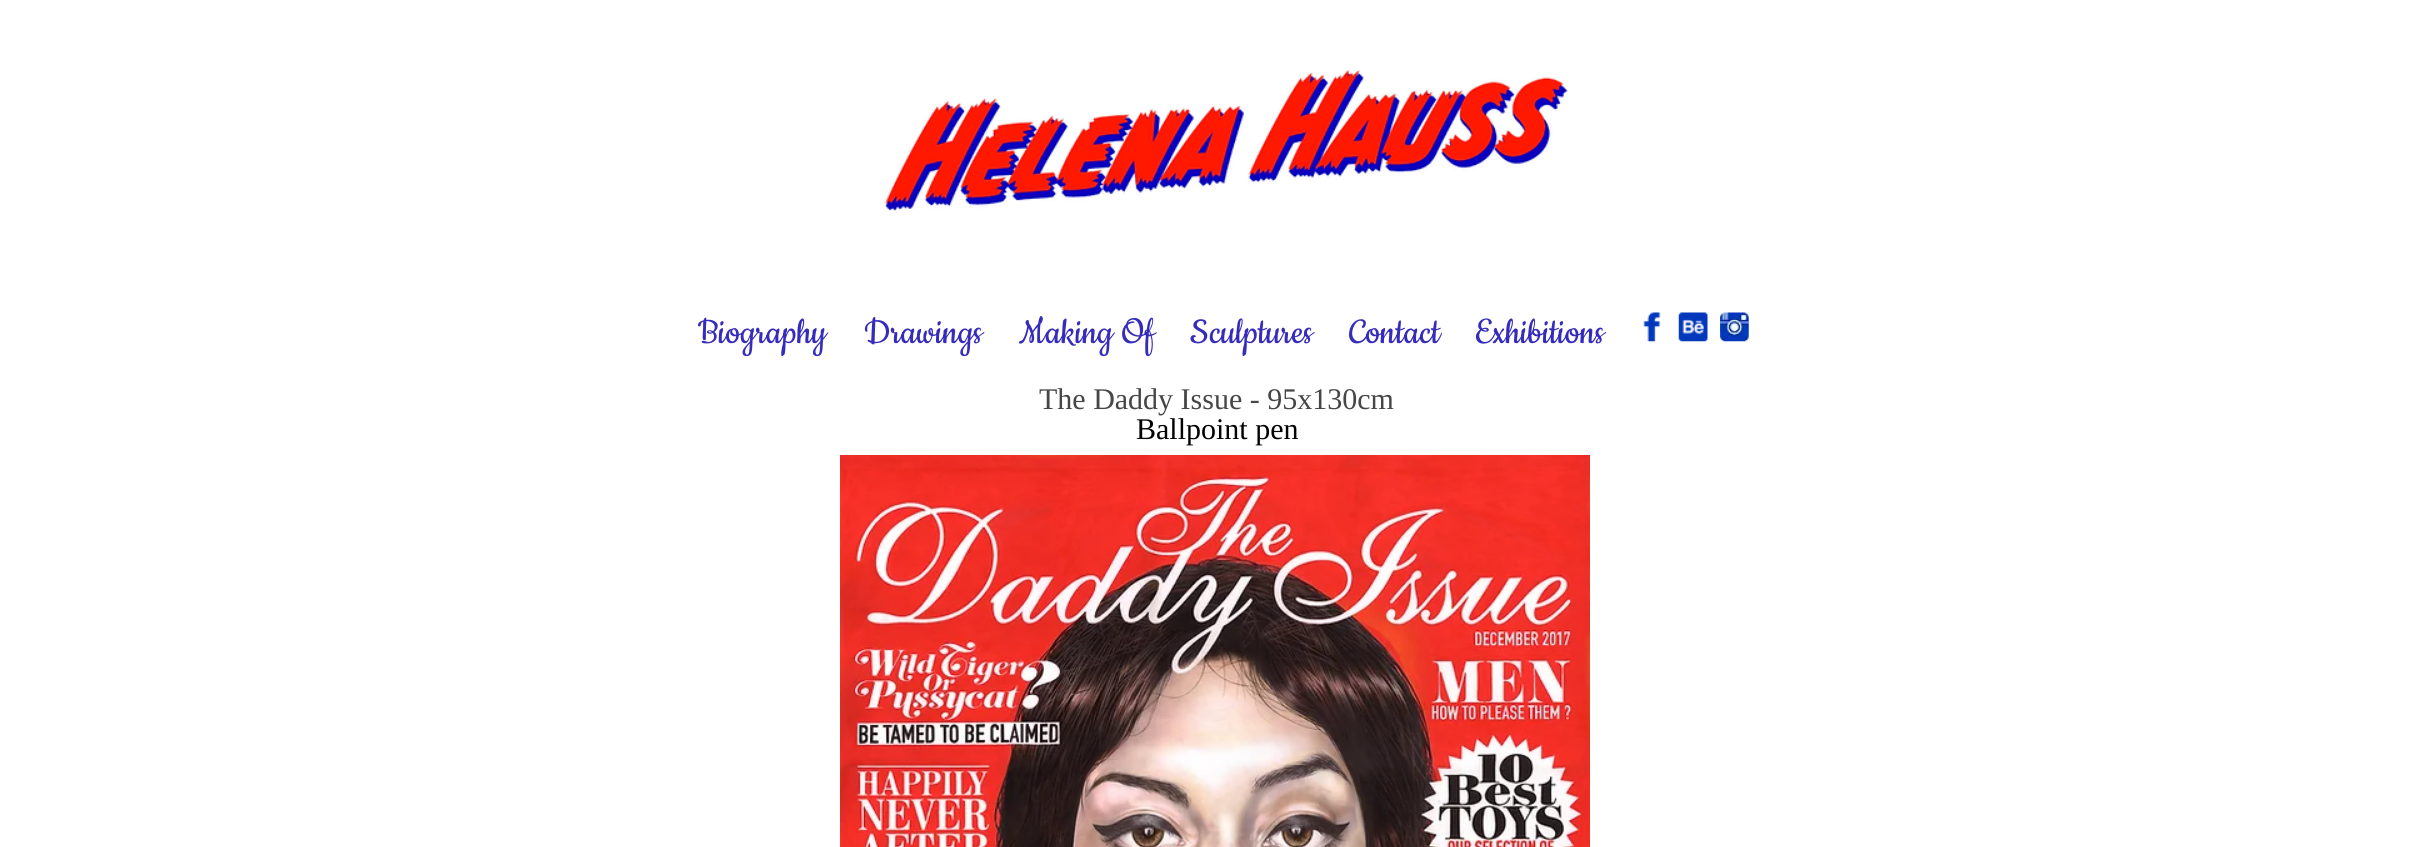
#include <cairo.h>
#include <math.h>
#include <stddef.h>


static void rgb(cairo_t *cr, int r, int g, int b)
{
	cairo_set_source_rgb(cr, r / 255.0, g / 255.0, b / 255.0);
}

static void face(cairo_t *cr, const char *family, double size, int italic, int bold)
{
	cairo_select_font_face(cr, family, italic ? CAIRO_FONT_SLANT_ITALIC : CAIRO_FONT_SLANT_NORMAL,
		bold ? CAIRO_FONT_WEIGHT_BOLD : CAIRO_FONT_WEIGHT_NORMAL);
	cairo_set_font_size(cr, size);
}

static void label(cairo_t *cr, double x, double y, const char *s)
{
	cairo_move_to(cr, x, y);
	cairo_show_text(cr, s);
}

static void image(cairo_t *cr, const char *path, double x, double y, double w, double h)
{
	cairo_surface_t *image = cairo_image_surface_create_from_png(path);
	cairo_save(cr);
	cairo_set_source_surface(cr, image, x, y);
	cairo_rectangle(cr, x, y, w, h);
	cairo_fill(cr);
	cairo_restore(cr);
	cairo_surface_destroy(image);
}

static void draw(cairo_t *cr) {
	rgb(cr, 255, 255, 255);
	cairo_paint(cr);
	image(cr, "image0.png", 884, 70, 684, 141);
	face(cr, "Cookie", 41, 0, 0);
	rgb(cr, 54, 44, 187);
	label(cr, 698, 343, "Biography");
	label(cr, 864, 343, "Drawings");
	label(cr, 1019, 343, "Making Of");
	label(cr, 1190, 343, "Sculptures");
	label(cr, 1349, 343, "Contact");
	label(cr, 1475, 343, "Exhibitions");
	image(cr, "image1.png", 1643, 312, 18, 30);
	image(cr, "image2.png", 1678, 312, 30, 30);
	image(cr, "image3.png", 1720, 312, 29, 30);
	face(cr, "Liberation Serif", 30, 0, 0);
	rgb(cr, 70, 70, 70);
	label(cr, 1039, 409, "The Daddy Issue - 95x130cm");
	rgb(cr, 0, 0, 0);
	label(cr, 1136, 439, "Ballpoint pen");
	image(cr, "image4.png", 840, 455, 750, 392);
}

int main(void) {
	cairo_surface_t *surface = cairo_image_surface_create(CAIRO_FORMAT_RGB24, 2427, 847);
	cairo_t *cr = cairo_create(surface);
	cairo_font_options_t *options = cairo_font_options_create();
	cairo_font_options_set_hint_metrics(options, CAIRO_HINT_METRICS_OFF);
	cairo_font_options_set_hint_style(options, CAIRO_HINT_STYLE_NONE);
	cairo_set_font_options(cr, options);
	cairo_set_miter_limit(cr, 4);
	draw(cr);
	cairo_surface_write_to_png(surface, "render.png");
	cairo_font_options_destroy(options);
	cairo_destroy(cr);
	cairo_surface_destroy(surface);
	return 0;
}
